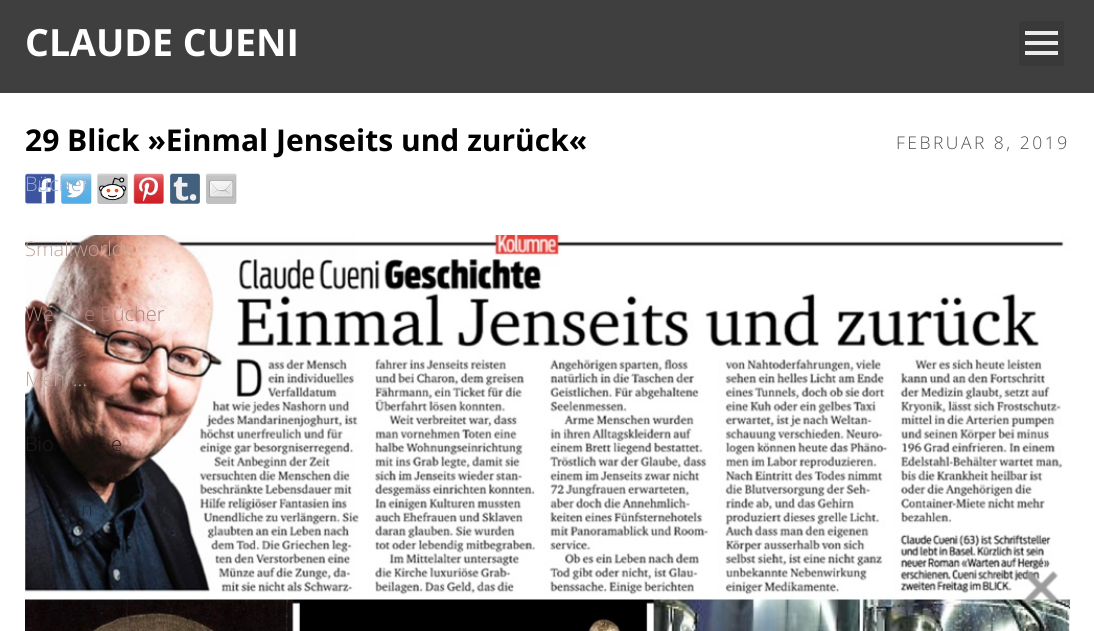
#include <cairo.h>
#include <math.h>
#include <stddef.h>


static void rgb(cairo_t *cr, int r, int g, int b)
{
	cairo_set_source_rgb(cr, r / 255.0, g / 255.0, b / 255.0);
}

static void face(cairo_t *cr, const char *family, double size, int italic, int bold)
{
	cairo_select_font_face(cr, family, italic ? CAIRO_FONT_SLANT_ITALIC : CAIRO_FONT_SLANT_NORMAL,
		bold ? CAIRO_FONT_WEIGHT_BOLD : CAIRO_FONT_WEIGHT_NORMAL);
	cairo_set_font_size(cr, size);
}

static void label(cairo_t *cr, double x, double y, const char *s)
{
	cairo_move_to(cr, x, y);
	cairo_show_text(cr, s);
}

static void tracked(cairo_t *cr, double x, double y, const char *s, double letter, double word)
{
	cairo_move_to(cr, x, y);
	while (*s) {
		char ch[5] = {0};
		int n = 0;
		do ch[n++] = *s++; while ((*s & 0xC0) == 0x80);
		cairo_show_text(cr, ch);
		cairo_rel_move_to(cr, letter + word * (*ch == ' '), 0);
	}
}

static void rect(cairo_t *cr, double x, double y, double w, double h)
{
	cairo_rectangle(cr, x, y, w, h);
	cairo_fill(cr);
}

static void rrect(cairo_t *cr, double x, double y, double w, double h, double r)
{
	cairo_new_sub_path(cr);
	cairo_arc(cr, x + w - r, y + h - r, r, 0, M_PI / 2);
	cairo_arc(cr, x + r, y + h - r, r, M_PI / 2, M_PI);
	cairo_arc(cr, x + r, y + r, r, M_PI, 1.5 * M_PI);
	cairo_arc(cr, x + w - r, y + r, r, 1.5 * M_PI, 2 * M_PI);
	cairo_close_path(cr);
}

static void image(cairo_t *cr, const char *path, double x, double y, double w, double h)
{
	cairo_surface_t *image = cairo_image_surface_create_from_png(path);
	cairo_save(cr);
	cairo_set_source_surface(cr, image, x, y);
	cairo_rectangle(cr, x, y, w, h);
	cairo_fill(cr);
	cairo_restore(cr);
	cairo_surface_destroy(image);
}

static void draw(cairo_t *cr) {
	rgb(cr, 255, 255, 255);
	cairo_paint(cr);
	rgb(cr, 63, 63, 63);
	rect(cr, 0, 0, 1094, 93);
	face(cr, "Open Sans", 37.5, 0, 1);
	rgb(cr, 255, 255, 255);
	label(cr, 25, 56, "CLAUDE CUENI");
	face(cr, "Open Sans", 30, 0, 1);
	rgb(cr, 0, 0, 0);
	label(cr, 25, 151, "29 Blick »Einmal Jenseits und zurück«");
	face(cr, "Open Sans Light", 17.5, 0, 0);
	rgb(cr, 80, 80, 80);
	tracked(cr, 896, 149, "FEBRUAR 8, 2019", 2.5, 0);
	image(cr, "image0.png", 25, 173, 30, 31);
	image(cr, "image1.png", 61, 173, 31, 31);
	image(cr, "image2.png", 97, 173, 31, 31);
	image(cr, "image3.png", 133, 173, 31, 31);
	image(cr, "image4.png", 170, 173, 30, 31);
	image(cr, "image5.png", 206, 173, 31, 31);
	image(cr, "image6.png", 25, 235, 1045, 396);
	rgb(cr, 57, 57, 57);
	rrect(cr, 1019, 21, 45, 45, 2.5);
	cairo_fill(cr);
	rgb(cr, 235, 235, 235);
	rect(cr, 1025, 51, 33, 4);
	rect(cr, 1025, 41, 33, 4);
	rect(cr, 1025, 31, 33, 4);
	face(cr, "Open Sans Light", 20, 0, 0);
	rgb(cr, 152, 173, 209);
	label(cr, 25, 191, "Bücher");
	rgb(cr, 191, 164, 156);
	label(cr, 25, 256, "Smallworlds");
	rgb(cr, 168, 133, 126);
	label(cr, 25, 321, "We");
	label(cr, 84, 321, "e Bücher");
	rgb(cr, 191, 164, 156);
	label(cr, 25, 386, "Mehr…");
	rgb(cr, 36, 25, 23);
	label(cr, 25, 451, "Bio");
	label(cr, 111, 451, "e");
	rgb(cr, 31, 37, 48);
	label(cr, 81, 516, "n");
	image(cr, "image7.png", 1024, 570, 34, 35);
}

int main(void) {
	cairo_surface_t *surface = cairo_image_surface_create(CAIRO_FORMAT_RGB24, 1094, 631);
	cairo_t *cr = cairo_create(surface);
	cairo_font_options_t *options = cairo_font_options_create();
	cairo_font_options_set_hint_metrics(options, CAIRO_HINT_METRICS_OFF);
	cairo_font_options_set_hint_style(options, CAIRO_HINT_STYLE_NONE);
	cairo_set_font_options(cr, options);
	cairo_set_miter_limit(cr, 4);
	draw(cr);
	cairo_surface_write_to_png(surface, "render.png");
	cairo_font_options_destroy(options);
	cairo_destroy(cr);
	cairo_surface_destroy(surface);
	return 0;
}
